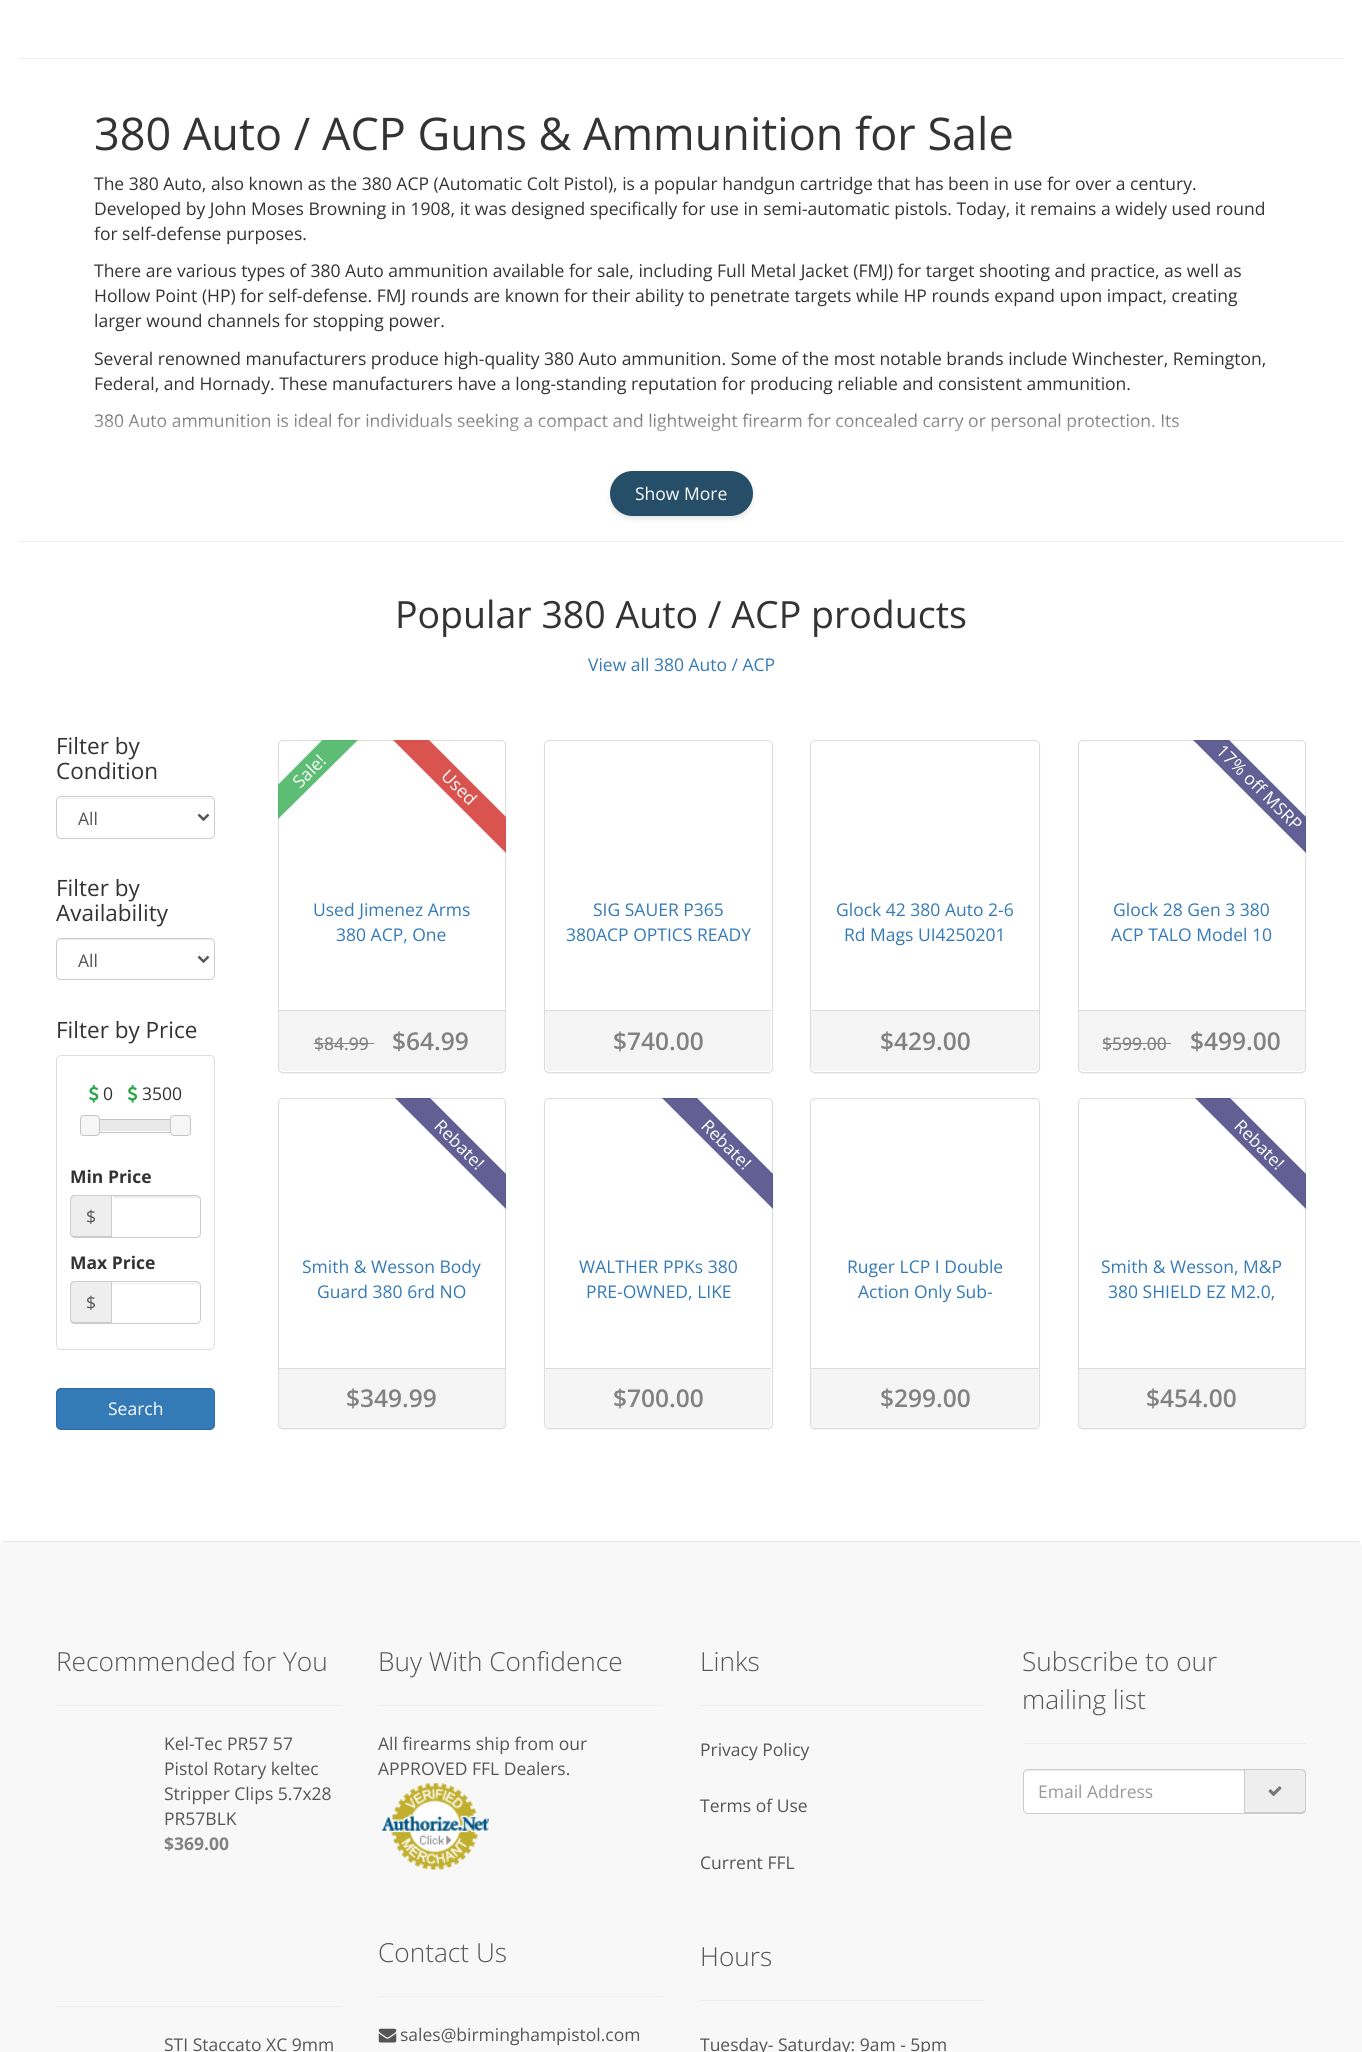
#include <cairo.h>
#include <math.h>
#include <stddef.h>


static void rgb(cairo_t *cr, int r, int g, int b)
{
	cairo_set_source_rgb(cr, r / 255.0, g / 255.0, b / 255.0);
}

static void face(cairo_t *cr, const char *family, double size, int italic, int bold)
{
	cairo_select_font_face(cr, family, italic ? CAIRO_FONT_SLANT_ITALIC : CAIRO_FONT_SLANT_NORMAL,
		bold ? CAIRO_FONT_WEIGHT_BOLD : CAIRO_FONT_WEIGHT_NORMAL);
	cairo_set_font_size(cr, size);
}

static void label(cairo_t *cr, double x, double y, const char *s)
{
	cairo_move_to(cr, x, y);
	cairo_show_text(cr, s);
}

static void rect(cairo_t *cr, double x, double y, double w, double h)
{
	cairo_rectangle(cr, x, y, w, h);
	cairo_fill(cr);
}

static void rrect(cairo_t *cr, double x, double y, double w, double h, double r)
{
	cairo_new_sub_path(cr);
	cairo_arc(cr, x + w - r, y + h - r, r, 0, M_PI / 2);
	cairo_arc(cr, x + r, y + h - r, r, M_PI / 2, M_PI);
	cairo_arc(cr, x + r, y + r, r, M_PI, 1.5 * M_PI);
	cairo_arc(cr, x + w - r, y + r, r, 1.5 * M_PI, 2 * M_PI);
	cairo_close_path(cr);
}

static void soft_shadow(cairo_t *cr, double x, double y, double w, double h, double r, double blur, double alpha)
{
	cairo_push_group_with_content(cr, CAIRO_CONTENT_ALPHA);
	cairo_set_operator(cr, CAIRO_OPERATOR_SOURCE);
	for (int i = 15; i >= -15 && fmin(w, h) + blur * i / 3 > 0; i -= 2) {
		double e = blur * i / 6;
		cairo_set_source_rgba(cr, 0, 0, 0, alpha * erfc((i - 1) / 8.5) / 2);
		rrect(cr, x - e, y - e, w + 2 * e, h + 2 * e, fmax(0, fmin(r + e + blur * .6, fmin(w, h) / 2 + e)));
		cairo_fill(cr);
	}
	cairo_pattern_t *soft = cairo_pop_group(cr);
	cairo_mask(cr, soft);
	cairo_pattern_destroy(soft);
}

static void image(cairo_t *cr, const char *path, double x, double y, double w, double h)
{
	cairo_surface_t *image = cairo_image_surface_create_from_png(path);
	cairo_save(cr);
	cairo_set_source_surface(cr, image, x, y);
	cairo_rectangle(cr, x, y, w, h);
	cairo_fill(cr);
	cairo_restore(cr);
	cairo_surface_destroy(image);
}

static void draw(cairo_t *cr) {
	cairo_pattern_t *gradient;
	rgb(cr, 255, 255, 255);
	cairo_paint(cr);
	rgb(cr, 238, 238, 238);
	rect(cr, 19, 58, 1325, 1);
	face(cr, "Open Sans", 45, 0, 0);
	rgb(cr, 51, 51, 51);
	label(cr, 94, 150, "380 Auto / ACP Guns & Ammunition for Sale");
	face(cr, "Open Sans", 17.5, 0, 0);
	label(cr, 94, 190, "The 380 Auto, also known as the 380 ACP (Automatic Colt Pistol), is a popular handgun cartridge that has been in use for over a century.");
	label(cr, 94, 215, "Developed by John Moses Browning in 1908, it was designed specifically for use in semi-automatic pistols. Today, it remains a widely used round");
	label(cr, 94, 240, "for self-defense purposes.");
	label(cr, 94, 277, "There are various types of 380 Auto ammunition available for sale, including Full Metal Jacket (FMJ) for target shooting and practice, as well as");
	label(cr, 94, 302, "Hollow Point (HP) for self-defense. FMJ rounds are known for their ability to penetrate targets while HP rounds expand upon impact, creating");
	label(cr, 94, 327, "larger wound channels for stopping power.");
	label(cr, 94, 365, "Several renowned manufacturers produce high-quality 380 Auto ammunition. Some of the most notable brands include Winchester, Remington,");
	label(cr, 94, 390, "Federal, and Hornady. These manufacturers have a long-standing reputation for producing reliable and consistent ammunition.");
	label(cr, 94, 427, "380 Auto ammunition is ideal for individuals seeking a compact and lightweight firearm for concealed carry or personal protection. Its");
	gradient = cairo_pattern_create_linear(681, 396, 681, 459);
	cairo_pattern_add_color_stop_rgba(gradient, 0, 1, 1, 1, 0);
	cairo_pattern_add_color_stop_rgba(gradient, 1, 1, 1, 1, 1);
	cairo_set_source(cr, gradient);
	cairo_pattern_destroy(gradient);
	rect(cr, 94, 413, 1085, 19);
	rgb(cr, 0, 0, 0);
	soft_shadow(cr, 610, 474, 143, 45, 22.5, 2.5, 0.1);
	rgb(cr, 39, 78, 104);
	rrect(cr, 610, 471, 143, 45, 22.5);
	cairo_fill(cr);
	rgb(cr, 255, 255, 255);
	label(cr, 635, 500, "Show More");
	rgb(cr, 238, 238, 238);
	rect(cr, 19, 541, 1325, 1);
	face(cr, "Open Sans", 37.5, 0, 0);
	rgb(cr, 51, 51, 51);
	label(cr, 395, 628, "Popular 380 Auto / ACP products");
	face(cr, "Open Sans", 17.5, 0, 0);
	rgb(cr, 51, 122, 183);
	label(cr, 588, 671, "View all 380 Auto / ACP");
	face(cr, "Open Sans", 22.5, 0, 0);
	rgb(cr, 51, 51, 51);
	label(cr, 56, 754, "Filter by");
	label(cr, 56, 779, "Condition");
	rgb(cr, 236, 236, 236);
	cairo_new_path(cr);
	cairo_move_to(cr, 61, 799);
	cairo_line_to(cr, 210, 799);
	cairo_curve_to(cr, 212, 799, 214, 800, 214, 802);
	cairo_curve_to(cr, 214, 800, 212, 798, 210, 798);
	cairo_line_to(cr, 62, 798);
	cairo_curve_to(cr, 61, 798, 59, 799, 59, 800);
	cairo_close_path(cr);
	cairo_fill(cr);
	rrect(cr, 56.5, 796.5, 158, 42, 4.5);
	rgb(cr, 204, 204, 204);
	cairo_set_line_width(cr, 1);
	cairo_stroke(cr);
	cairo_new_path(cr);
	cairo_move_to(cr, 198.5, 814.5);
	cairo_line_to(cr, 203.5, 819.5);
	cairo_line_to(cr, 208.5, 814.5);
	rgb(cr, 85, 85, 85);
	cairo_set_line_width(cr, 2.5);
	cairo_stroke(cr);
	face(cr, "Open Sans", 17.5, 0, 0);
	label(cr, 78, 825, "All");
	face(cr, "Open Sans", 22.5, 0, 0);
	rgb(cr, 51, 51, 51);
	label(cr, 56, 896, "Filter by");
	label(cr, 56, 921, "Availability");
	rgb(cr, 236, 236, 236);
	cairo_new_path(cr);
	cairo_move_to(cr, 61, 940);
	cairo_line_to(cr, 210, 940);
	cairo_curve_to(cr, 212, 940, 214, 942, 214, 944);
	cairo_curve_to(cr, 214, 942, 213, 940, 211, 939);
	cairo_line_to(cr, 61, 939);
	cairo_curve_to(cr, 59, 940, 58, 942, 58, 944);
	cairo_curve_to(cr, 58, 942, 59, 940, 61, 940);
	cairo_close_path(cr);
	cairo_fill(cr);
	rrect(cr, 56.5, 938.5, 158, 41, 4.5);
	rgb(cr, 204, 204, 204);
	cairo_set_line_width(cr, 1);
	cairo_stroke(cr);
	cairo_new_path(cr);
	cairo_move_to(cr, 198.5, 956.5);
	cairo_line_to(cr, 203.5, 961.5);
	cairo_line_to(cr, 208.5, 956.5);
	rgb(cr, 85, 85, 85);
	cairo_set_line_width(cr, 2.5);
	cairo_stroke(cr);
	face(cr, "Open Sans", 17.5, 0, 0);
	label(cr, 78, 967, "All");
	face(cr, "Open Sans", 22.5, 0, 0);
	rgb(cr, 51, 51, 51);
	label(cr, 56, 1038, "Filter by Price");
	rrect(cr, 56.5, 1055.5, 158, 294, 4.5);
	rgb(cr, 221, 221, 221);
	cairo_set_line_width(cr, 1);
	cairo_stroke(cr);
	image(cr, "image0.png", 89, 1085, 10, 18);
	face(cr, "Open Sans", 17.5, 0, 0);
	rgb(cr, 51, 51, 51);
	label(cr, 103, 1100, "0");
	image(cr, "image1.png", 128, 1085, 9, 18);
	label(cr, 142, 1100, "3500");
	cairo_rectangle(cr, 89.5, 1119.5, 93, 13);
	rgb(cr, 197, 197, 197);
	cairo_stroke(cr);
	rgb(cr, 246, 246, 246);
	rrect(cr, 80.5, 1115.5, 19, 20, 3.5);
	cairo_fill_preserve(cr);
	rgb(cr, 197, 197, 197);
	cairo_stroke(cr);
	rgb(cr, 233, 233, 233);
	rect(cr, 100, 1120, 70, 11);
	rgb(cr, 246, 246, 246);
	rrect(cr, 170.5, 1115.5, 20, 20, 3.5);
	cairo_fill_preserve(cr);
	rgb(cr, 197, 197, 197);
	cairo_stroke(cr);
	face(cr, "Open Sans", 17.5, 0, 1);
	rgb(cr, 51, 51, 51);
	label(cr, 70, 1183, "Min Price");
	rgb(cr, 238, 238, 238);
	cairo_new_path(cr);
	cairo_move_to(cr, 75, 1195);
	cairo_line_to(cr, 111, 1195);
	cairo_line_to(cr, 111, 1238);
	cairo_line_to(cr, 75, 1238);
	cairo_curve_to(cr, 72, 1238, 70, 1236, 70, 1233);
	cairo_line_to(cr, 70, 1200);
	cairo_curve_to(cr, 70, 1197, 72, 1195, 75, 1195);
	cairo_close_path(cr);
	cairo_fill(cr);
	rgb(cr, 204, 204, 204);
	cairo_set_fill_rule(cr, CAIRO_FILL_RULE_EVEN_ODD);
	cairo_new_path(cr);
	cairo_move_to(cr, 75, 1195);
	cairo_line_to(cr, 111, 1195);
	cairo_line_to(cr, 111, 1238);
	cairo_line_to(cr, 75, 1238);
	cairo_curve_to(cr, 72, 1238, 70, 1235, 70, 1232);
	cairo_line_to(cr, 70, 1200);
	cairo_curve_to(cr, 70, 1197, 72, 1195, 75, 1195);
	cairo_close_path(cr);
	cairo_move_to(cr, 75, 1196);
	cairo_line_to(cr, 111, 1196);
	cairo_line_to(cr, 111, 1236);
	cairo_line_to(cr, 75, 1236);
	cairo_curve_to(cr, 73, 1236, 71, 1235, 71, 1232);
	cairo_line_to(cr, 71, 1200);
	cairo_curve_to(cr, 71, 1198, 73, 1196, 75, 1196);
	cairo_close_path(cr);
	cairo_fill(cr);
	face(cr, "Open Sans", 17.5, 0, 0);
	rgb(cr, 85, 85, 85);
	label(cr, 86, 1223, "$");
	rgb(cr, 236, 236, 236);
	cairo_set_fill_rule(cr, CAIRO_FILL_RULE_WINDING);
	cairo_new_path(cr);
	cairo_move_to(cr, 113, 1196);
	cairo_line_to(cr, 113, 1198);
	cairo_line_to(cr, 196, 1198);
	cairo_curve_to(cr, 198, 1198, 200, 1199, 200, 1201);
	cairo_curve_to(cr, 200, 1198, 199, 1196, 196, 1196);
	cairo_close_path(cr);
	cairo_fill(cr);
	cairo_new_path(cr);
	cairo_move_to(cr, 111.5, 1195.5);
	cairo_line_to(cr, 196, 1195.5);
	cairo_curve_to(cr, 198.5, 1195.5, 200.5, 1197.5, 200.5, 1200);
	cairo_line_to(cr, 200.5, 1233);
	cairo_curve_to(cr, 200.5, 1235.5, 198.5, 1237.5, 196, 1237.5);
	cairo_line_to(cr, 111.5, 1237.5);
	cairo_close_path(cr);
	rgb(cr, 204, 204, 204);
	cairo_stroke(cr);
	face(cr, "Open Sans", 17.5, 0, 1);
	rgb(cr, 51, 51, 51);
	label(cr, 70, 1269, "Max Price");
	rgb(cr, 238, 238, 238);
	cairo_new_path(cr);
	cairo_move_to(cr, 75, 1281);
	cairo_line_to(cr, 111, 1281);
	cairo_line_to(cr, 111, 1324);
	cairo_line_to(cr, 75, 1324);
	cairo_curve_to(cr, 72, 1324, 70, 1322, 70, 1319);
	cairo_line_to(cr, 70, 1286);
	cairo_curve_to(cr, 70, 1283, 72, 1281, 75, 1281);
	cairo_close_path(cr);
	cairo_fill(cr);
	rgb(cr, 204, 204, 204);
	cairo_set_fill_rule(cr, CAIRO_FILL_RULE_EVEN_ODD);
	cairo_new_path(cr);
	cairo_move_to(cr, 75, 1281);
	cairo_line_to(cr, 111, 1281);
	cairo_line_to(cr, 111, 1324);
	cairo_line_to(cr, 75, 1324);
	cairo_curve_to(cr, 72, 1324, 70, 1322, 70, 1319);
	cairo_line_to(cr, 70, 1286);
	cairo_curve_to(cr, 70, 1283, 72, 1281, 75, 1281);
	cairo_close_path(cr);
	cairo_move_to(cr, 75, 1282);
	cairo_line_to(cr, 111, 1282);
	cairo_line_to(cr, 111, 1322);
	cairo_line_to(cr, 75, 1322);
	cairo_curve_to(cr, 73, 1322, 71, 1321, 71, 1319);
	cairo_line_to(cr, 71, 1286);
	cairo_curve_to(cr, 71, 1284, 73, 1282, 75, 1282);
	cairo_close_path(cr);
	cairo_fill(cr);
	face(cr, "Open Sans", 17.5, 0, 0);
	rgb(cr, 85, 85, 85);
	label(cr, 86, 1309, "$");
	rgb(cr, 236, 236, 236);
	cairo_set_fill_rule(cr, CAIRO_FILL_RULE_WINDING);
	cairo_new_path(cr);
	cairo_move_to(cr, 113, 1283);
	cairo_line_to(cr, 113, 1284);
	cairo_line_to(cr, 196, 1284);
	cairo_curve_to(cr, 198, 1284, 200, 1285, 200, 1288);
	cairo_curve_to(cr, 200, 1285, 199, 1283, 196, 1283);
	cairo_close_path(cr);
	cairo_fill(cr);
	cairo_new_path(cr);
	cairo_move_to(cr, 111.5, 1281.5);
	cairo_line_to(cr, 196, 1281.5);
	cairo_curve_to(cr, 198.5, 1281.5, 200.5, 1283.5, 200.5, 1286);
	cairo_line_to(cr, 200.5, 1319);
	cairo_curve_to(cr, 200.5, 1321.5, 198.5, 1323.5, 196, 1323.5);
	cairo_line_to(cr, 111.5, 1323.5);
	cairo_close_path(cr);
	rgb(cr, 204, 204, 204);
	cairo_stroke(cr);
	rgb(cr, 51, 122, 183);
	rrect(cr, 56.5, 1388.5, 158, 41, 4.5);
	cairo_fill_preserve(cr);
	rgb(cr, 46, 109, 164);
	cairo_stroke(cr);
	rgb(cr, 255, 255, 255);
	label(cr, 108, 1415, "Search");
	rgb(cr, 0, 0, 0);
	soft_shadow(cr, 278, 741, 228, 333, 5, 0.5, 0.05);
	rgb(cr, 255, 255, 255);
	rrect(cr, 278.5, 740.5, 227, 332, 4.5);
	cairo_fill_preserve(cr);
	rgb(cr, 221, 221, 221);
	cairo_stroke(cr);
	cairo_save(cr);
	cairo_rectangle(cr, 278, 740, 81, 81);
	cairo_clip(cr);
	cairo_set_source_rgba(cr, 0.157, 0.655, 0.271, 0.75);
	cairo_new_path(cr);
	cairo_move_to(cr, 256, 807);
	cairo_line_to(cr, 344, 718);
	cairo_line_to(cr, 362, 736);
	cairo_line_to(cr, 273, 824);
	cairo_close_path(cr);
	cairo_fill(cr);
	cairo_restore(cr);
	rgb(cr, 255, 255, 255);
	cairo_save(cr);
	cairo_translate(cr, 300, 789);
	cairo_rotate(cr, -45 * M_PI / 180);
	label(cr, 0, 0, "Sale!");
	cairo_restore(cr);
	cairo_save(cr);
	cairo_rectangle(cr, 356, 740, 150, 150);
	cairo_clip(cr);
	rgb(cr, 217, 83, 79);
	cairo_new_path(cr);
	cairo_move_to(cr, 395, 706);
	cairo_line_to(cr, 541, 852);
	cairo_line_to(cr, 523, 870);
	cairo_line_to(cr, 377, 724);
	cairo_close_path(cr);
	cairo_fill(cr);
	cairo_restore(cr);
	cairo_save(cr);
	cairo_translate(cr, 440, 777);
	cairo_rotate(cr, 45 * M_PI / 180);
	label(cr, 0, 0, "Used");
	cairo_restore(cr);
	rgb(cr, 51, 122, 183);
	label(cr, 313, 916, "Used Jimenez Arms");
	label(cr, 336, 941, "380 ACP, One");
	rgb(cr, 245, 245, 245);
	cairo_new_path(cr);
	cairo_move_to(cr, 279, 1010);
	cairo_line_to(cr, 505, 1010);
	cairo_line_to(cr, 505, 1067);
	cairo_curve_to(cr, 505, 1069, 503, 1071, 501, 1071);
	cairo_line_to(cr, 283, 1071);
	cairo_curve_to(cr, 281, 1071, 279, 1069, 279, 1067);
	cairo_close_path(cr);
	cairo_fill(cr);
	rgb(cr, 221, 221, 221);
	rect(cr, 279, 1010, 226, 1);
	face(cr, "Open Sans Medium", 17.5, 0, 0);
	rgb(cr, 130, 130, 130);
	label(cr, 314, 1050, "$84.99");
	rect(cr, 314, 1043, 60, 1);
	face(cr, "Open Sans SemiBold", 24.5, 0, 0);
	label(cr, 392, 1050, "$64.99");
	rgb(cr, 0, 0, 0);
	soft_shadow(cr, 544, 741, 229, 333, 5, 0.5, 0.05);
	rgb(cr, 255, 255, 255);
	rrect(cr, 544.5, 740.5, 228, 332, 4.5);
	cairo_fill_preserve(cr);
	rgb(cr, 221, 221, 221);
	cairo_stroke(cr);
	face(cr, "Open Sans", 17.5, 0, 0);
	rgb(cr, 51, 122, 183);
	label(cr, 593, 916, "SIG SAUER P365");
	label(cr, 566, 941, "380ACP OPTICS READY");
	rgb(cr, 245, 245, 245);
	cairo_new_path(cr);
	cairo_move_to(cr, 545, 1010);
	cairo_line_to(cr, 771, 1010);
	cairo_line_to(cr, 771, 1067);
	cairo_curve_to(cr, 771, 1069, 769, 1071, 767, 1071);
	cairo_line_to(cr, 549, 1071);
	cairo_curve_to(cr, 547, 1071, 545, 1069, 545, 1067);
	cairo_close_path(cr);
	cairo_fill(cr);
	rgb(cr, 221, 221, 221);
	rect(cr, 545, 1010, 226, 1);
	face(cr, "Open Sans SemiBold", 24.5, 0, 0);
	rgb(cr, 130, 130, 130);
	label(cr, 613, 1050, "$740.00");
	rgb(cr, 0, 0, 0);
	soft_shadow(cr, 810, 741, 230, 333, 5, 0.5, 0.05);
	rgb(cr, 255, 255, 255);
	rrect(cr, 810.5, 740.5, 229, 332, 4.5);
	cairo_fill_preserve(cr);
	rgb(cr, 221, 221, 221);
	cairo_stroke(cr);
	face(cr, "Open Sans", 17.5, 0, 0);
	rgb(cr, 51, 122, 183);
	label(cr, 836, 916, "Glock 42 380 Auto 2-6");
	label(cr, 844, 941, "Rd Mags UI4250201");
	rgb(cr, 245, 245, 245);
	cairo_new_path(cr);
	cairo_move_to(cr, 811, 1010);
	cairo_line_to(cr, 1039, 1010);
	cairo_line_to(cr, 1039, 1067);
	cairo_curve_to(cr, 1039, 1069, 1037, 1071, 1035, 1071);
	cairo_line_to(cr, 815, 1071);
	cairo_curve_to(cr, 813, 1071, 811, 1069, 811, 1067);
	cairo_close_path(cr);
	cairo_fill(cr);
	rgb(cr, 221, 221, 221);
	rect(cr, 811, 1010, 228, 1);
	face(cr, "Open Sans SemiBold", 24.5, 0, 0);
	rgb(cr, 130, 130, 130);
	label(cr, 880, 1050, "$429.00");
	rgb(cr, 0, 0, 0);
	soft_shadow(cr, 1078, 741, 228, 333, 5, 0.5, 0.05);
	rgb(cr, 255, 255, 255);
	rrect(cr, 1078.5, 740.5, 227, 332, 4.5);
	cairo_fill_preserve(cr);
	rgb(cr, 221, 221, 221);
	cairo_stroke(cr);
	cairo_save(cr);
	cairo_rectangle(cr, 1156, 740, 150, 150);
	cairo_clip(cr);
	cairo_set_source_rgba(cr, 0.173, 0.165, 0.435, 0.75);
	cairo_new_path(cr);
	cairo_move_to(cr, 1195, 706);
	cairo_line_to(cr, 1341, 852);
	cairo_line_to(cr, 1323, 870);
	cairo_line_to(cr, 1177, 724);
	cairo_close_path(cr);
	cairo_fill(cr);
	cairo_restore(cr);
	face(cr, "Open Sans", 17.5, 0, 0);
	rgb(cr, 255, 255, 255);
	cairo_save(cr);
	cairo_translate(cr, 1215, 752);
	cairo_rotate(cr, 45 * M_PI / 180);
	label(cr, 0, 0, "17% off MSRP");
	cairo_restore(cr);
	rgb(cr, 51, 122, 183);
	label(cr, 1113, 916, "Glock 28 Gen 3 380");
	label(cr, 1111, 941, "ACP TALO Model 10");
	rgb(cr, 245, 245, 245);
	cairo_new_path(cr);
	cairo_move_to(cr, 1079, 1010);
	cairo_line_to(cr, 1305, 1010);
	cairo_line_to(cr, 1305, 1067);
	cairo_curve_to(cr, 1305, 1069, 1303, 1071, 1301, 1071);
	cairo_line_to(cr, 1083, 1071);
	cairo_curve_to(cr, 1081, 1071, 1079, 1069, 1079, 1067);
	cairo_close_path(cr);
	cairo_fill(cr);
	rgb(cr, 221, 221, 221);
	rect(cr, 1079, 1010, 226, 1);
	face(cr, "Open Sans Medium", 17.5, 0, 0);
	rgb(cr, 130, 130, 130);
	label(cr, 1102, 1050, "$599.00");
	rect(cr, 1103, 1043, 68, 1);
	face(cr, "Open Sans SemiBold", 24.5, 0, 0);
	label(cr, 1190, 1050, "$499.00");
	rgb(cr, 0, 0, 0);
	soft_shadow(cr, 278, 1099, 228, 331, 5, 0.5, 0.05);
	rgb(cr, 255, 255, 255);
	rrect(cr, 278.5, 1098.5, 227, 330, 4.5);
	cairo_fill_preserve(cr);
	rgb(cr, 221, 221, 221);
	cairo_stroke(cr);
	cairo_save(cr);
	cairo_rectangle(cr, 356, 1098, 150, 150);
	cairo_clip(cr);
	cairo_set_source_rgba(cr, 0.173, 0.165, 0.435, 0.75);
	cairo_new_path(cr);
	cairo_move_to(cr, 395, 1063);
	cairo_line_to(cr, 541, 1209);
	cairo_line_to(cr, 523, 1226);
	cairo_line_to(cr, 377, 1080);
	cairo_close_path(cr);
	cairo_fill(cr);
	cairo_restore(cr);
	face(cr, "Open Sans", 17.5, 0, 0);
	rgb(cr, 255, 255, 255);
	cairo_save(cr);
	cairo_translate(cr, 433, 1127);
	cairo_rotate(cr, 45 * M_PI / 180);
	label(cr, 0, 0, "Rebate!");
	cairo_restore(cr);
	rgb(cr, 51, 122, 183);
	label(cr, 302, 1273, "Smith & Wesson Body");
	label(cr, 317, 1298, "Guard 380 6rd NO");
	rgb(cr, 245, 245, 245);
	cairo_new_path(cr);
	cairo_move_to(cr, 279, 1368);
	cairo_line_to(cr, 505, 1368);
	cairo_line_to(cr, 505, 1424);
	cairo_curve_to(cr, 505, 1426, 503, 1428, 501, 1428);
	cairo_line_to(cr, 283, 1428);
	cairo_curve_to(cr, 281, 1428, 279, 1426, 279, 1424);
	cairo_close_path(cr);
	cairo_fill(cr);
	rgb(cr, 221, 221, 221);
	rect(cr, 279, 1368, 226, 1);
	face(cr, "Open Sans SemiBold", 24.5, 0, 0);
	rgb(cr, 130, 130, 130);
	label(cr, 346, 1407, "$349.99");
	rgb(cr, 0, 0, 0);
	soft_shadow(cr, 544, 1099, 229, 331, 5, 0.5, 0.05);
	rgb(cr, 255, 255, 255);
	rrect(cr, 544.5, 1098.5, 228, 330, 4.5);
	cairo_fill_preserve(cr);
	rgb(cr, 221, 221, 221);
	cairo_stroke(cr);
	cairo_save(cr);
	cairo_rectangle(cr, 623, 1098, 150, 150);
	cairo_clip(cr);
	cairo_set_source_rgba(cr, 0.173, 0.165, 0.435, 0.75);
	cairo_new_path(cr);
	cairo_move_to(cr, 662, 1063);
	cairo_line_to(cr, 808, 1209);
	cairo_line_to(cr, 790, 1226);
	cairo_line_to(cr, 644, 1080);
	cairo_close_path(cr);
	cairo_fill(cr);
	cairo_restore(cr);
	face(cr, "Open Sans", 17.5, 0, 0);
	rgb(cr, 255, 255, 255);
	cairo_save(cr);
	cairo_translate(cr, 700, 1127);
	cairo_rotate(cr, 45 * M_PI / 180);
	label(cr, 0, 0, "Rebate!");
	cairo_restore(cr);
	rgb(cr, 51, 122, 183);
	label(cr, 579, 1273, "WALTHER PPKs 380");
	label(cr, 586, 1298, "PRE-OWNED, LIKE");
	rgb(cr, 245, 245, 245);
	cairo_new_path(cr);
	cairo_move_to(cr, 545, 1368);
	cairo_line_to(cr, 771, 1368);
	cairo_line_to(cr, 771, 1424);
	cairo_curve_to(cr, 771, 1426, 769, 1428, 767, 1428);
	cairo_line_to(cr, 549, 1428);
	cairo_curve_to(cr, 547, 1428, 545, 1426, 545, 1424);
	cairo_close_path(cr);
	cairo_fill(cr);
	rgb(cr, 221, 221, 221);
	rect(cr, 545, 1368, 226, 1);
	face(cr, "Open Sans SemiBold", 24.5, 0, 0);
	rgb(cr, 130, 130, 130);
	label(cr, 613, 1407, "$700.00");
	rgb(cr, 0, 0, 0);
	soft_shadow(cr, 810, 1099, 230, 331, 5, 0.5, 0.05);
	rgb(cr, 255, 255, 255);
	rrect(cr, 810.5, 1098.5, 229, 330, 4.5);
	cairo_fill_preserve(cr);
	rgb(cr, 221, 221, 221);
	cairo_stroke(cr);
	face(cr, "Open Sans", 17.5, 0, 0);
	rgb(cr, 51, 122, 183);
	label(cr, 847, 1273, "Ruger LCP I Double");
	label(cr, 858, 1298, "Action Only Sub-");
	rgb(cr, 245, 245, 245);
	cairo_new_path(cr);
	cairo_move_to(cr, 811, 1368);
	cairo_line_to(cr, 1039, 1368);
	cairo_line_to(cr, 1039, 1424);
	cairo_curve_to(cr, 1039, 1426, 1037, 1428, 1035, 1428);
	cairo_line_to(cr, 815, 1428);
	cairo_curve_to(cr, 813, 1428, 811, 1426, 811, 1424);
	cairo_close_path(cr);
	cairo_fill(cr);
	rgb(cr, 221, 221, 221);
	rect(cr, 811, 1368, 228, 1);
	face(cr, "Open Sans SemiBold", 24.5, 0, 0);
	rgb(cr, 130, 130, 130);
	label(cr, 880, 1407, "$299.00");
	rgb(cr, 0, 0, 0);
	soft_shadow(cr, 1078, 1099, 228, 331, 5, 0.5, 0.05);
	rgb(cr, 255, 255, 255);
	rrect(cr, 1078.5, 1098.5, 227, 330, 4.5);
	cairo_fill_preserve(cr);
	rgb(cr, 221, 221, 221);
	cairo_stroke(cr);
	cairo_save(cr);
	cairo_rectangle(cr, 1156, 1098, 150, 150);
	cairo_clip(cr);
	cairo_set_source_rgba(cr, 0.173, 0.165, 0.435, 0.75);
	cairo_new_path(cr);
	cairo_move_to(cr, 1195, 1063);
	cairo_line_to(cr, 1341, 1209);
	cairo_line_to(cr, 1323, 1226);
	cairo_line_to(cr, 1177, 1080);
	cairo_close_path(cr);
	cairo_fill(cr);
	cairo_restore(cr);
	face(cr, "Open Sans", 17.5, 0, 0);
	rgb(cr, 255, 255, 255);
	cairo_save(cr);
	cairo_translate(cr, 1233, 1127);
	cairo_rotate(cr, 45 * M_PI / 180);
	label(cr, 0, 0, "Rebate!");
	cairo_restore(cr);
	rgb(cr, 51, 122, 183);
	label(cr, 1101, 1273, "Smith & Wesson, M&P");
	label(cr, 1108, 1298, "380 SHIELD EZ M2.0,");
	rgb(cr, 245, 245, 245);
	cairo_new_path(cr);
	cairo_move_to(cr, 1079, 1368);
	cairo_line_to(cr, 1305, 1368);
	cairo_line_to(cr, 1305, 1424);
	cairo_curve_to(cr, 1305, 1426, 1303, 1428, 1301, 1428);
	cairo_line_to(cr, 1083, 1428);
	cairo_curve_to(cr, 1081, 1428, 1079, 1426, 1079, 1424);
	cairo_close_path(cr);
	cairo_fill(cr);
	rgb(cr, 221, 221, 221);
	rect(cr, 1079, 1368, 226, 1);
	face(cr, "Open Sans SemiBold", 24.5, 0, 0);
	rgb(cr, 130, 130, 130);
	label(cr, 1146, 1407, "$454.00");
	rgb(cr, 248, 248, 248);
	cairo_new_path(cr);
	cairo_move_to(cr, 5, 1542);
	cairo_line_to(cr, 1358, 1542);
	cairo_curve_to(cr, 1360, 1542, 1362, 1544, 1362, 1546);
	cairo_line_to(cr, 1362, 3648);
	cairo_curve_to(cr, 1362, 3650, 1360, 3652, 1358, 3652);
	cairo_line_to(cr, 5, 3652);
	cairo_curve_to(cr, 2, 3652, 0, 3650, 0, 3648);
	cairo_line_to(cr, 0, 1546);
	cairo_curve_to(cr, 0, 1544, 2, 1542, 5, 1542);
	cairo_close_path(cr);
	cairo_fill(cr);
	rgb(cr, 231, 231, 231);
	rect(cr, 3, 1541, 1357, 1);
	face(cr, "Open Sans Light", 26.25, 0, 0);
	rgb(cr, 85, 85, 85);
	label(cr, 56, 1671, "Recommended for You");
	rgb(cr, 238, 238, 238);
	rect(cr, 56, 1705, 285, 1);
	face(cr, "Open Sans", 17.5, 0, 0);
	rgb(cr, 85, 85, 85);
	label(cr, 164, 1750, "Kel-Tec PR57 57");
	label(cr, 164, 1775, "Pistol Rotary keltec");
	label(cr, 164, 1800, "Stripper Clips 5.7x28");
	label(cr, 164, 1825, "PR57BLK");
	face(cr, "Open Sans", 17.5, 0, 1);
	rgb(cr, 130, 130, 130);
	label(cr, 164, 1850, "$369.00");
	rgb(cr, 238, 238, 238);
	rect(cr, 56, 2006, 285, 1);
	face(cr, "Open Sans", 17.5, 0, 0);
	rgb(cr, 85, 85, 85);
	label(cr, 164, 2051, "STI Staccato XC 9mm");
	face(cr, "Open Sans Light", 26.25, 0, 0);
	label(cr, 378, 1671, "Buy With Confidence");
	rgb(cr, 238, 238, 238);
	rect(cr, 379, 1705, 284, 1);
	face(cr, "Open Sans", 17.5, 0, 0);
	rgb(cr, 85, 85, 85);
	label(cr, 378, 1750, "All firearms ship from our");
	label(cr, 378, 1775, "APPROVED FFL Dealers.");
	image(cr, "image2.png", 380, 1783, 110, 87);
	face(cr, "Open Sans Light", 26.25, 0, 0);
	label(cr, 378, 1962, "Contact Us");
	rgb(cr, 238, 238, 238);
	rect(cr, 379, 1996, 284, 1);
	image(cr, "image3.png", 378, 2028, 19, 15);
	face(cr, "Open Sans", 17.5, 0, 0);
	rgb(cr, 85, 85, 85);
	label(cr, 400, 2041, "sales@birminghampistol.com");
	face(cr, "Open Sans Light", 26.25, 0, 0);
	label(cr, 700, 1671, "Links");
	rgb(cr, 238, 238, 238);
	rect(cr, 700, 1705, 285, 1);
	face(cr, "Open Sans", 17.5, 0, 0);
	rgb(cr, 85, 85, 85);
	label(cr, 700, 1756, "Privacy Policy");
	label(cr, 700, 1812, "Terms of Use");
	label(cr, 700, 1869, "Current FFL");
	face(cr, "Open Sans Light", 26.25, 0, 0);
	label(cr, 700, 1966, "Hours");
	rgb(cr, 238, 238, 238);
	rect(cr, 700, 2000, 285, 1);
	face(cr, "Open Sans", 17.5, 0, 0);
	rgb(cr, 85, 85, 85);
	label(cr, 700, 2051, "Tuesday- Saturday: 9am - 5pm");
	face(cr, "Open Sans Light", 26.25, 0, 0);
	label(cr, 1022, 1671, "Subscribe to our");
	label(cr, 1022, 1709, "mailing list");
	rgb(cr, 238, 238, 238);
	rect(cr, 1023, 1743, 283, 1);
	rgb(cr, 255, 255, 255);
	cairo_new_path(cr);
	cairo_move_to(cr, 1028, 1769);
	cairo_line_to(cr, 1245, 1769);
	cairo_line_to(cr, 1245, 1814);
	cairo_line_to(cr, 1028, 1814);
	cairo_curve_to(cr, 1025, 1814, 1023, 1812, 1023, 1809);
	cairo_line_to(cr, 1023, 1774);
	cairo_curve_to(cr, 1023, 1771, 1025, 1769, 1028, 1769);
	cairo_close_path(cr);
	cairo_fill(cr);
	rgb(cr, 236, 236, 236);
	cairo_new_path(cr);
	cairo_move_to(cr, 1028, 1771);
	cairo_line_to(cr, 1244, 1771);
	cairo_line_to(cr, 1244, 1770);
	cairo_line_to(cr, 1028, 1770);
	cairo_curve_to(cr, 1025, 1770, 1024, 1772, 1024, 1775);
	cairo_curve_to(cr, 1024, 1773, 1025, 1771, 1028, 1771);
	cairo_close_path(cr);
	cairo_fill(cr);
	cairo_new_path(cr);
	cairo_move_to(cr, 1028, 1769.5);
	cairo_line_to(cr, 1244.5, 1769.5);
	cairo_line_to(cr, 1244.5, 1813.5);
	cairo_line_to(cr, 1028, 1813.5);
	cairo_curve_to(cr, 1025.5, 1813.5, 1023.5, 1811.5, 1023.5, 1809);
	cairo_line_to(cr, 1023.5, 1774);
	cairo_curve_to(cr, 1023.5, 1771.5, 1025.5, 1769.5, 1028, 1769.5);
	cairo_close_path(cr);
	rgb(cr, 204, 204, 204);
	cairo_stroke(cr);
	face(cr, "Open Sans", 17.5, 0, 0);
	rgb(cr, 153, 153, 153);
	label(cr, 1038, 1798, "Email Address");
	rgb(cr, 238, 238, 238);
	cairo_new_path(cr);
	cairo_move_to(cr, 1245, 1769);
	cairo_line_to(cr, 1301, 1769);
	cairo_curve_to(cr, 1304, 1769, 1306, 1771, 1306, 1774);
	cairo_line_to(cr, 1306, 1809);
	cairo_curve_to(cr, 1306, 1812, 1304, 1814, 1301, 1814);
	cairo_line_to(cr, 1245, 1814);
	cairo_close_path(cr);
	cairo_fill(cr);
	rgb(cr, 204, 204, 204);
	cairo_set_fill_rule(cr, CAIRO_FILL_RULE_EVEN_ODD);
	cairo_new_path(cr);
	cairo_move_to(cr, 1245, 1769);
	cairo_line_to(cr, 1301, 1769);
	cairo_curve_to(cr, 1304, 1769, 1306, 1771, 1306, 1774);
	cairo_line_to(cr, 1306, 1809);
	cairo_curve_to(cr, 1306, 1812, 1304, 1814, 1301, 1814);
	cairo_line_to(cr, 1245, 1814);
	cairo_close_path(cr);
	cairo_move_to(cr, 1245, 1770);
	cairo_line_to(cr, 1301, 1770);
	cairo_curve_to(cr, 1303, 1770, 1305, 1772, 1305, 1774);
	cairo_line_to(cr, 1305, 1809);
	cairo_curve_to(cr, 1305, 1811, 1303, 1812, 1301, 1812);
	cairo_line_to(cr, 1245, 1812);
	cairo_close_path(cr);
	cairo_fill(cr);
	image(cr, "image4.png", 1268, 1786, 14, 11);
}

int main(void) {
	cairo_surface_t *surface = cairo_image_surface_create(CAIRO_FORMAT_RGB24, 1362, 2052);
	cairo_t *cr = cairo_create(surface);
	cairo_font_options_t *options = cairo_font_options_create();
	cairo_font_options_set_hint_metrics(options, CAIRO_HINT_METRICS_OFF);
	cairo_font_options_set_hint_style(options, CAIRO_HINT_STYLE_NONE);
	cairo_set_font_options(cr, options);
	cairo_set_miter_limit(cr, 4);
	draw(cr);
	cairo_surface_write_to_png(surface, "render.png");
	cairo_font_options_destroy(options);
	cairo_destroy(cr);
	cairo_surface_destroy(surface);
	return 0;
}
